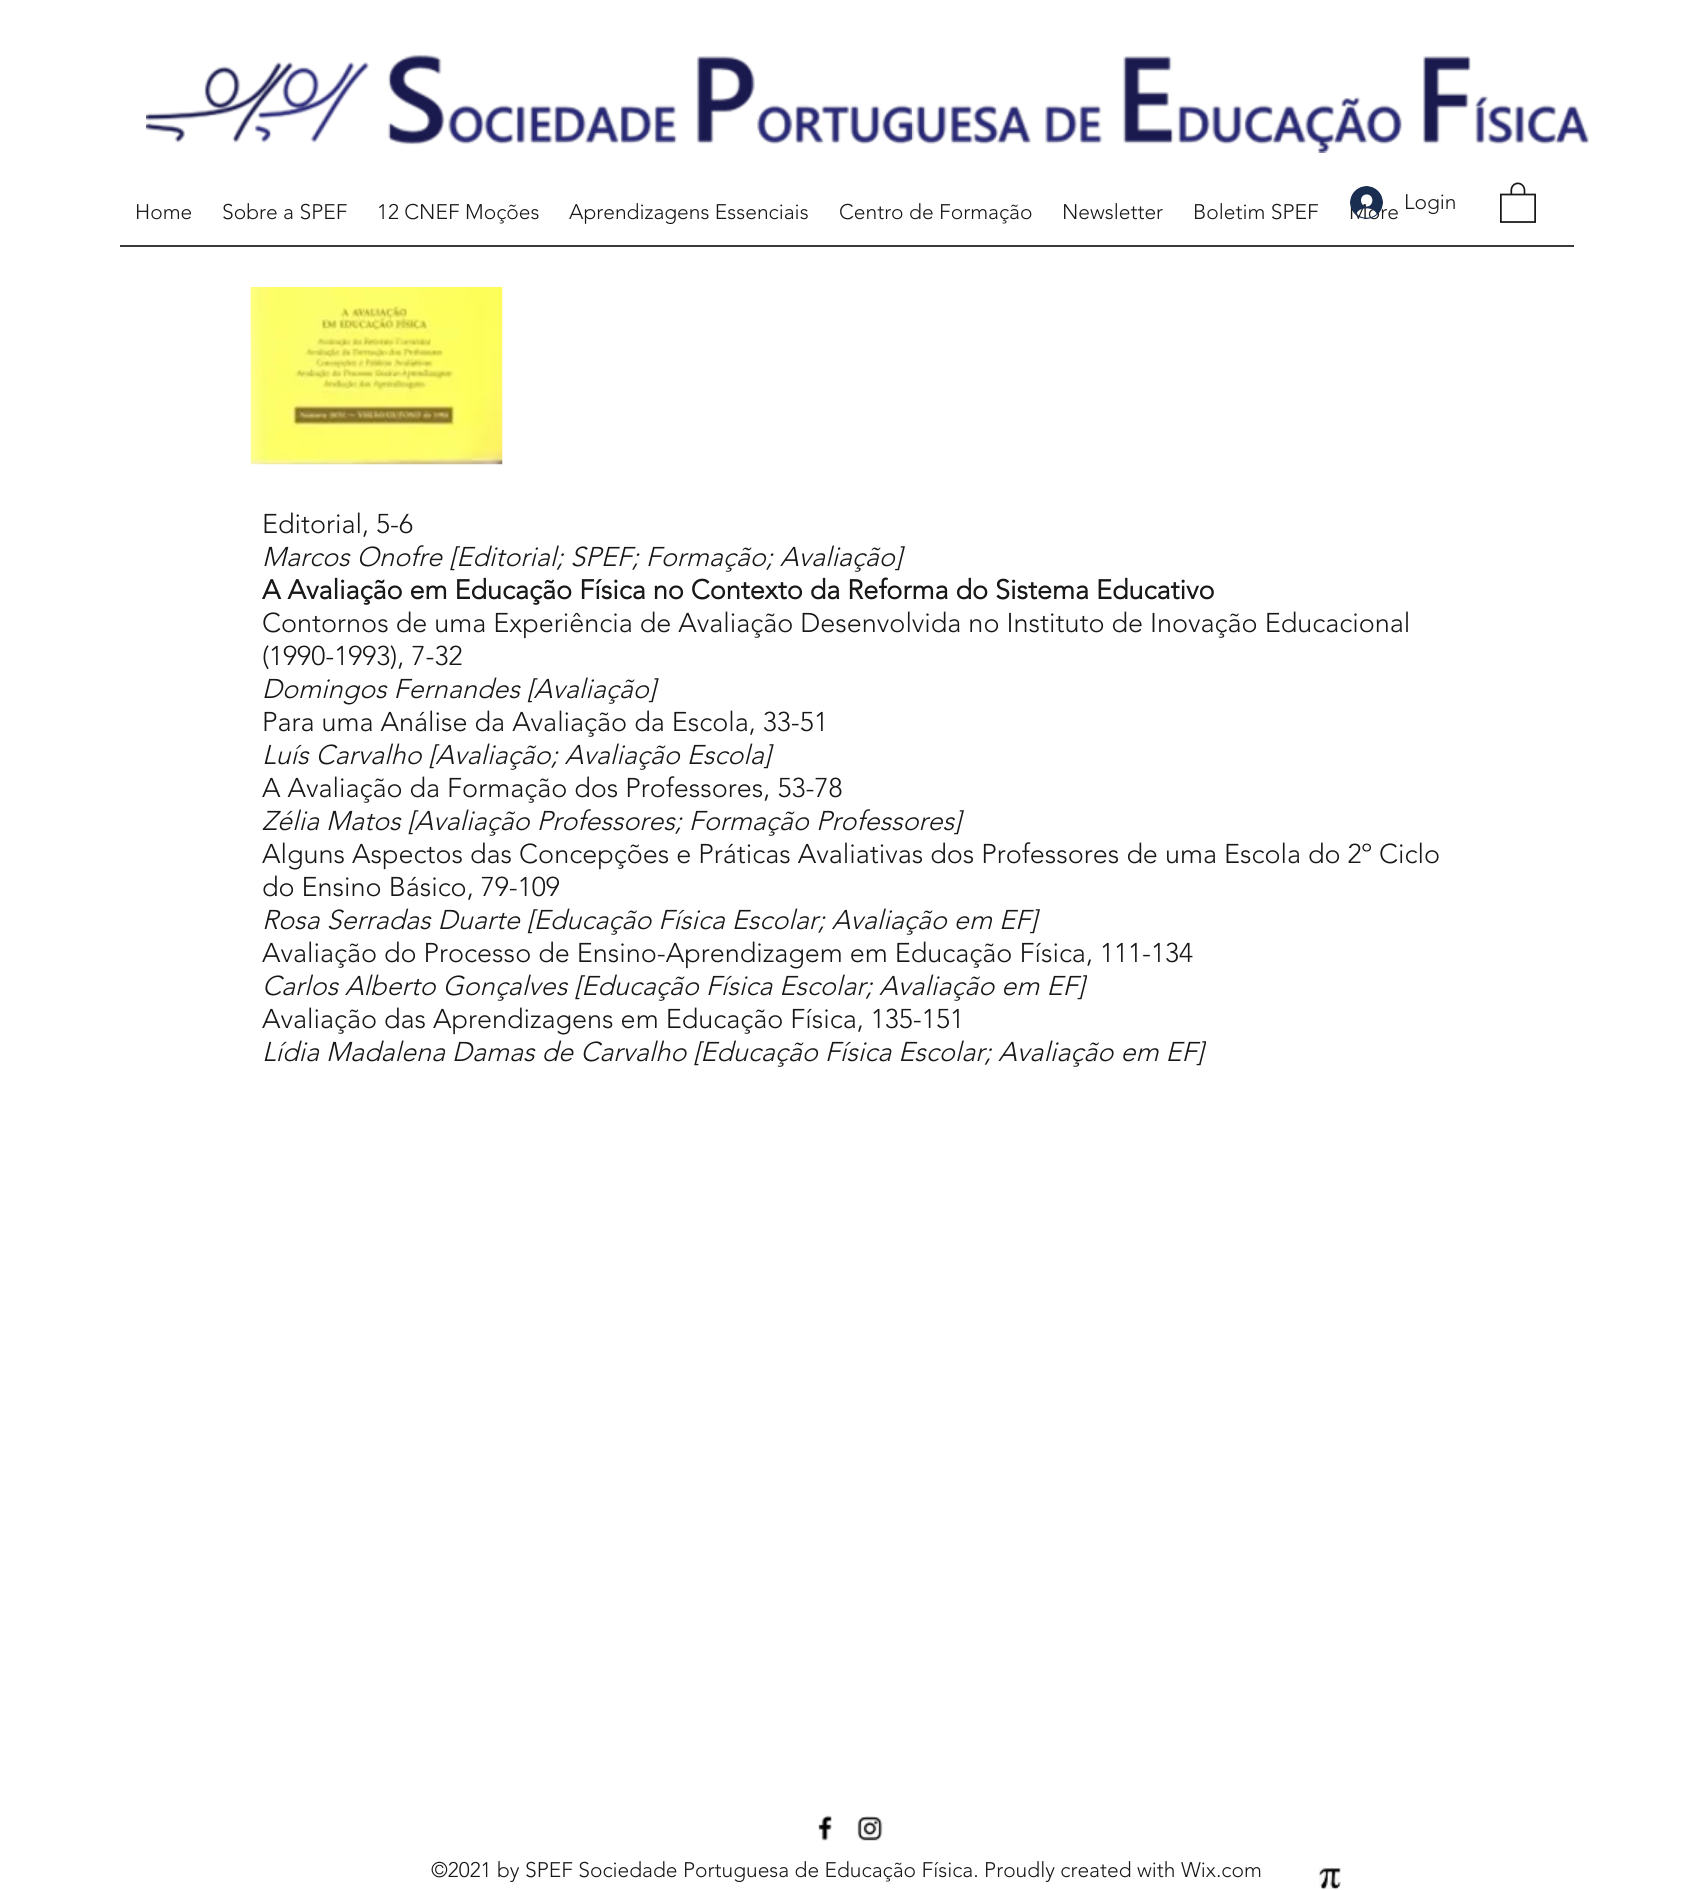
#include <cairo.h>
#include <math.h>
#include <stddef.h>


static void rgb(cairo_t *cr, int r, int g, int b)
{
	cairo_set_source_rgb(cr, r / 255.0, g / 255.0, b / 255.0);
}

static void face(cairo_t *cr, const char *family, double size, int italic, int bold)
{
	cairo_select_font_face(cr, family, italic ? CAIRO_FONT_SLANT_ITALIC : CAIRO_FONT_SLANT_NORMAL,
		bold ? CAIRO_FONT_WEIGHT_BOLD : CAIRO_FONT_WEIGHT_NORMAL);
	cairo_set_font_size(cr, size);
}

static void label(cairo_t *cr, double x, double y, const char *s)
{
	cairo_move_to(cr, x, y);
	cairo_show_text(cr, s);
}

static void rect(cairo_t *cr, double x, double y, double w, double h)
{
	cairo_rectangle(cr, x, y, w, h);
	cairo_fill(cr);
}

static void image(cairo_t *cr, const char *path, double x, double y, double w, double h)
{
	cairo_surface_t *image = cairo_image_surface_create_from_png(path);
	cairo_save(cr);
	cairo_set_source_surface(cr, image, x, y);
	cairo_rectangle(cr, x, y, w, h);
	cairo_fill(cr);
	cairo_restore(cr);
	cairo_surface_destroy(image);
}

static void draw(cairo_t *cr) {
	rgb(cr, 255, 255, 255);
	cairo_paint(cr);
	image(cr, "image0.png", 146, 54, 1443, 99);
	face(cr, "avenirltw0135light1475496 Light", 21, 0, 0);
	rgb(cr, 24, 24, 24);
	label(cr, 135, 219, "Home");
	label(cr, 222, 219, "Sobre a SPEF");
	label(cr, 377, 219, "12 CNEF Moções");
	label(cr, 569, 219, "Aprendizagens Essenciais");
	label(cr, 839, 219, "Centro de Formação");
	label(cr, 1062, 219, "Newsletter");
	label(cr, 1193, 219, "Boletim SPEF");
	label(cr, 1349, 219, "More");
	image(cr, "image1.png", 1350, 186, 33, 33);
	label(cr, 1404, 209, "Login");
	image(cr, "image2.png", 1500, 182, 36, 41);
	rgb(cr, 59, 59, 59);
	rect(cr, 120, 245, 1454, 2);
	image(cr, "image3.png", 250, 287, 253, 178);
	face(cr, "avenirltw0135light1475496 Light", 27, 0, 0);
	rgb(cr, 24, 24, 24);
	label(cr, 262, 533, "Editorial, 5-6");
	face(cr, "avenirltw0135light1475496 Light", 27, 1, 0);
	label(cr, 262, 566, "Marcos Onofre [Editorial; SPEF; Formação; Avaliação]");
	face(cr, "avenirltw0135light1475496", 27, 0, 1);
	label(cr, 262, 599, "A Avaliação em Educação Física no Contexto da Reforma do Sistema Educativo");
	face(cr, "avenirltw0135light1475496 Light", 27, 0, 0);
	label(cr, 262, 632, "Contornos de uma Experiência de Avaliação Desenvolvida no Instituto de Inovação Educacional");
	label(cr, 262, 665, "(1990-1993), 7-32");
	face(cr, "avenirltw0135light1475496 Light", 27, 1, 0);
	label(cr, 262, 698, "Domingos Fernandes [Avaliação]");
	face(cr, "avenirltw0135light1475496 Light", 27, 0, 0);
	label(cr, 262, 731, "Para uma Análise da Avaliação da Escola, 33-51");
	face(cr, "avenirltw0135light1475496 Light", 27, 1, 0);
	label(cr, 262, 764, "Luís Carvalho [Avaliação; Avaliação Escola]");
	face(cr, "avenirltw0135light1475496 Light", 27, 0, 0);
	label(cr, 262, 797, "A Avaliação da Formação dos Professores, 53-78");
	face(cr, "avenirltw0135light1475496 Light", 27, 1, 0);
	label(cr, 262, 830, "Zélia Matos [Avaliação Professores; Formação Professores]");
	face(cr, "avenirltw0135light1475496 Light", 27, 0, 0);
	label(cr, 262, 863, "Alguns Aspectos das Concepções e Práticas Avaliativas dos Professores de uma Escola do 2º Ciclo");
	label(cr, 262, 896, "do Ensino Básico, 79-109");
	face(cr, "avenirltw0135light1475496 Light", 27, 1, 0);
	label(cr, 262, 929, "Rosa Serradas Duarte [Educação Física Escolar; Avaliação em EF]");
	face(cr, "avenirltw0135light1475496 Light", 27, 0, 0);
	label(cr, 262, 962, "Avaliação do Processo de Ensino-Aprendizagem em Educação Física, 111-134");
	face(cr, "avenirltw0135light1475496 Light", 27, 1, 0);
	label(cr, 262, 995, "Carlos Alberto Gonçalves [Educação Física Escolar; Avaliação em EF]");
	face(cr, "avenirltw0135light1475496 Light", 27, 0, 0);
	label(cr, 262, 1028, "Avaliação das Aprendizagens em Educação Física, 135-151");
	face(cr, "avenirltw0135light1475496 Light", 27, 1, 0);
	label(cr, 262, 1061, "Lídia Madalena Damas de Carvalho [Educação Física Escolar; Avaliação em EF]");
	image(cr, "image4.png", 818, 1815, 14, 26);
	image(cr, "image5.png", 857, 1816, 26, 25);
	face(cr, "avenirltw0135light1475496 Light", 21, 0, 0);
	label(cr, 431, 1877, "©2021 by SPEF Sociedade Portuguesa de Educação Física. Proudly created with Wix.com");
	image(cr, "image6.png", 1318, 1867, 23, 23);
}

int main(void) {
	cairo_surface_t *surface = cairo_image_surface_create(CAIRO_FORMAT_RGB24, 1693, 1890);
	cairo_t *cr = cairo_create(surface);
	cairo_font_options_t *options = cairo_font_options_create();
	cairo_font_options_set_hint_metrics(options, CAIRO_HINT_METRICS_OFF);
	cairo_font_options_set_hint_style(options, CAIRO_HINT_STYLE_NONE);
	cairo_set_font_options(cr, options);
	cairo_set_miter_limit(cr, 4);
	draw(cr);
	cairo_surface_write_to_png(surface, "render.png");
	cairo_font_options_destroy(options);
	cairo_destroy(cr);
	cairo_surface_destroy(surface);
	return 0;
}
